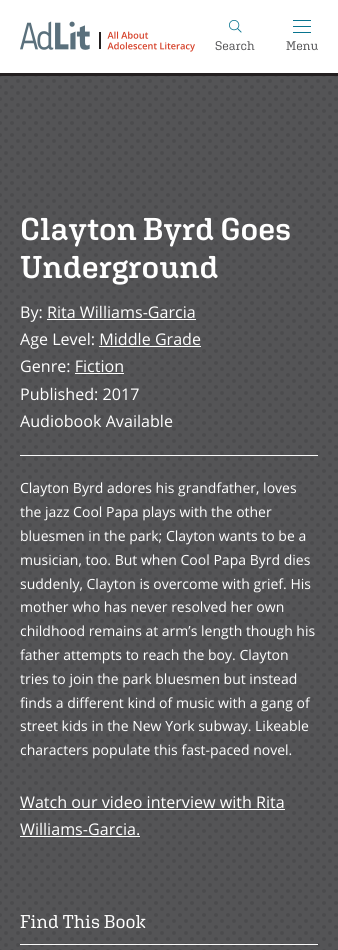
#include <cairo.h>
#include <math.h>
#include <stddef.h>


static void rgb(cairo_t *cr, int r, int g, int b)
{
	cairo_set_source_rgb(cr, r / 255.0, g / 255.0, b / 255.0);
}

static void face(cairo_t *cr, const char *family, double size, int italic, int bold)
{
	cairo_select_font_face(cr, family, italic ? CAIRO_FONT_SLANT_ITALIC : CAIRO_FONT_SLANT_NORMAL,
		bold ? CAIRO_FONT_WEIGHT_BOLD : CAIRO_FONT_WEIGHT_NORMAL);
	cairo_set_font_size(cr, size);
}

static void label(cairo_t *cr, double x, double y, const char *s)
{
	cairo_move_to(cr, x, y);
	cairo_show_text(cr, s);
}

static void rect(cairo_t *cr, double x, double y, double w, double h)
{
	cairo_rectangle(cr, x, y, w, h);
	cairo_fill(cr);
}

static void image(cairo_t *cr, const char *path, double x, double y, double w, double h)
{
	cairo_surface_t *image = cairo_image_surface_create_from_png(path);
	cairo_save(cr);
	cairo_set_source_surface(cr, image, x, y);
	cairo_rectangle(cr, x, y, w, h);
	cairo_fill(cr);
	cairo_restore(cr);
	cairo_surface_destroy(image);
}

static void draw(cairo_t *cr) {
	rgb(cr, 84, 84, 86);
	cairo_paint(cr);
	rgb(cr, 255, 255, 255);
	rect(cr, 0, 0, 338, 73);
	rgb(cr, 35, 31, 32);
	rect(cr, 0, 73, 338, 3);
	image(cr, "image0.png", 20, 21, 175, 31);
	image(cr, "image1.png", 229, 20, 13, 13);
	face(cr, "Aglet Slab", 12.5, 0, 0);
	rgb(cr, 84, 84, 86);
	label(cr, 215, 50, "Search");
	rgb(cr, 8, 116, 143);
	rect(cr, 293, 20, 18, 1);
	rect(cr, 293, 26, 18, 1);
	rect(cr, 293, 32, 18, 1);
	rgb(cr, 84, 84, 86);
	label(cr, 286, 50, "Menu");
	image(cr, "image2.png", 0, 76, 338, 874);
	face(cr, "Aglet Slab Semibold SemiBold", 31.5, 0, 0);
	rgb(cr, 255, 255, 255);
	label(cr, 20, 240, "Clayton Byrd Goes");
	label(cr, 20, 278, "Underground");
	face(cr, "Open Sans", 16.1, 0, 0);
	label(cr, 20, 318, "By: Rita Williams-Garcia");
	rect(cr, 47, 319, 149, 1);
	label(cr, 20, 345, "Age Level: Middle Grade");
	rect(cr, 99, 346, 102, 1);
	label(cr, 20, 372, "Genre: Fiction");
	rect(cr, 75, 373, 49, 1);
	label(cr, 20, 400, "Published: 2017");
	label(cr, 20, 427, "Audiobook Available");
	rgb(cr, 250, 250, 250);
	rect(cr, 20, 455, 298, 1);
	face(cr, "Open Sans", 14, 0, 0);
	rgb(cr, 255, 255, 255);
	label(cr, 20, 493, "Clayton Byrd adores his grandfather, loves");
	label(cr, 20, 517, "the jazz Cool Papa plays with the other");
	label(cr, 20, 541, "bluesmen in the park; Clayton wants to be a");
	label(cr, 20, 565, "musician, too. But when Cool Papa Byrd dies");
	label(cr, 20, 589, "suddenly, Clayton is overcome with grief. His");
	label(cr, 20, 612, "mother who has never resolved her own");
	label(cr, 20, 636, "childhood remains at arm’s length though his");
	label(cr, 20, 660, "father attempts to reach the boy. Clayton");
	label(cr, 20, 684, "tries to join the park bluesmen but instead");
	label(cr, 20, 708, "finds a different kind of music with a gang of");
	label(cr, 20, 731, "street kids in the New York subway. Likeable");
	label(cr, 20, 755, "characters populate this fast-paced novel.");
	face(cr, "Open Sans", 16.1, 0, 0);
	label(cr, 20, 808, "Watch our video interview with Rita");
	rect(cr, 20, 809, 265, 1);
	label(cr, 20, 835, "Williams-Garcia.");
	rect(cr, 20, 836, 120, 1);
	face(cr, "Aglet Slab", 18.5, 0, 0);
	label(cr, 20, 928, "Find This Book");
	rgb(cr, 250, 250, 250);
	rect(cr, 20, 944, 298, 1);
}

int main(void) {
	cairo_surface_t *surface = cairo_image_surface_create(CAIRO_FORMAT_RGB24, 338, 950);
	cairo_t *cr = cairo_create(surface);
	cairo_font_options_t *options = cairo_font_options_create();
	cairo_font_options_set_hint_metrics(options, CAIRO_HINT_METRICS_OFF);
	cairo_font_options_set_hint_style(options, CAIRO_HINT_STYLE_NONE);
	cairo_set_font_options(cr, options);
	cairo_set_miter_limit(cr, 4);
	draw(cr);
	cairo_surface_write_to_png(surface, "render.png");
	cairo_font_options_destroy(options);
	cairo_destroy(cr);
	cairo_surface_destroy(surface);
	return 0;
}
